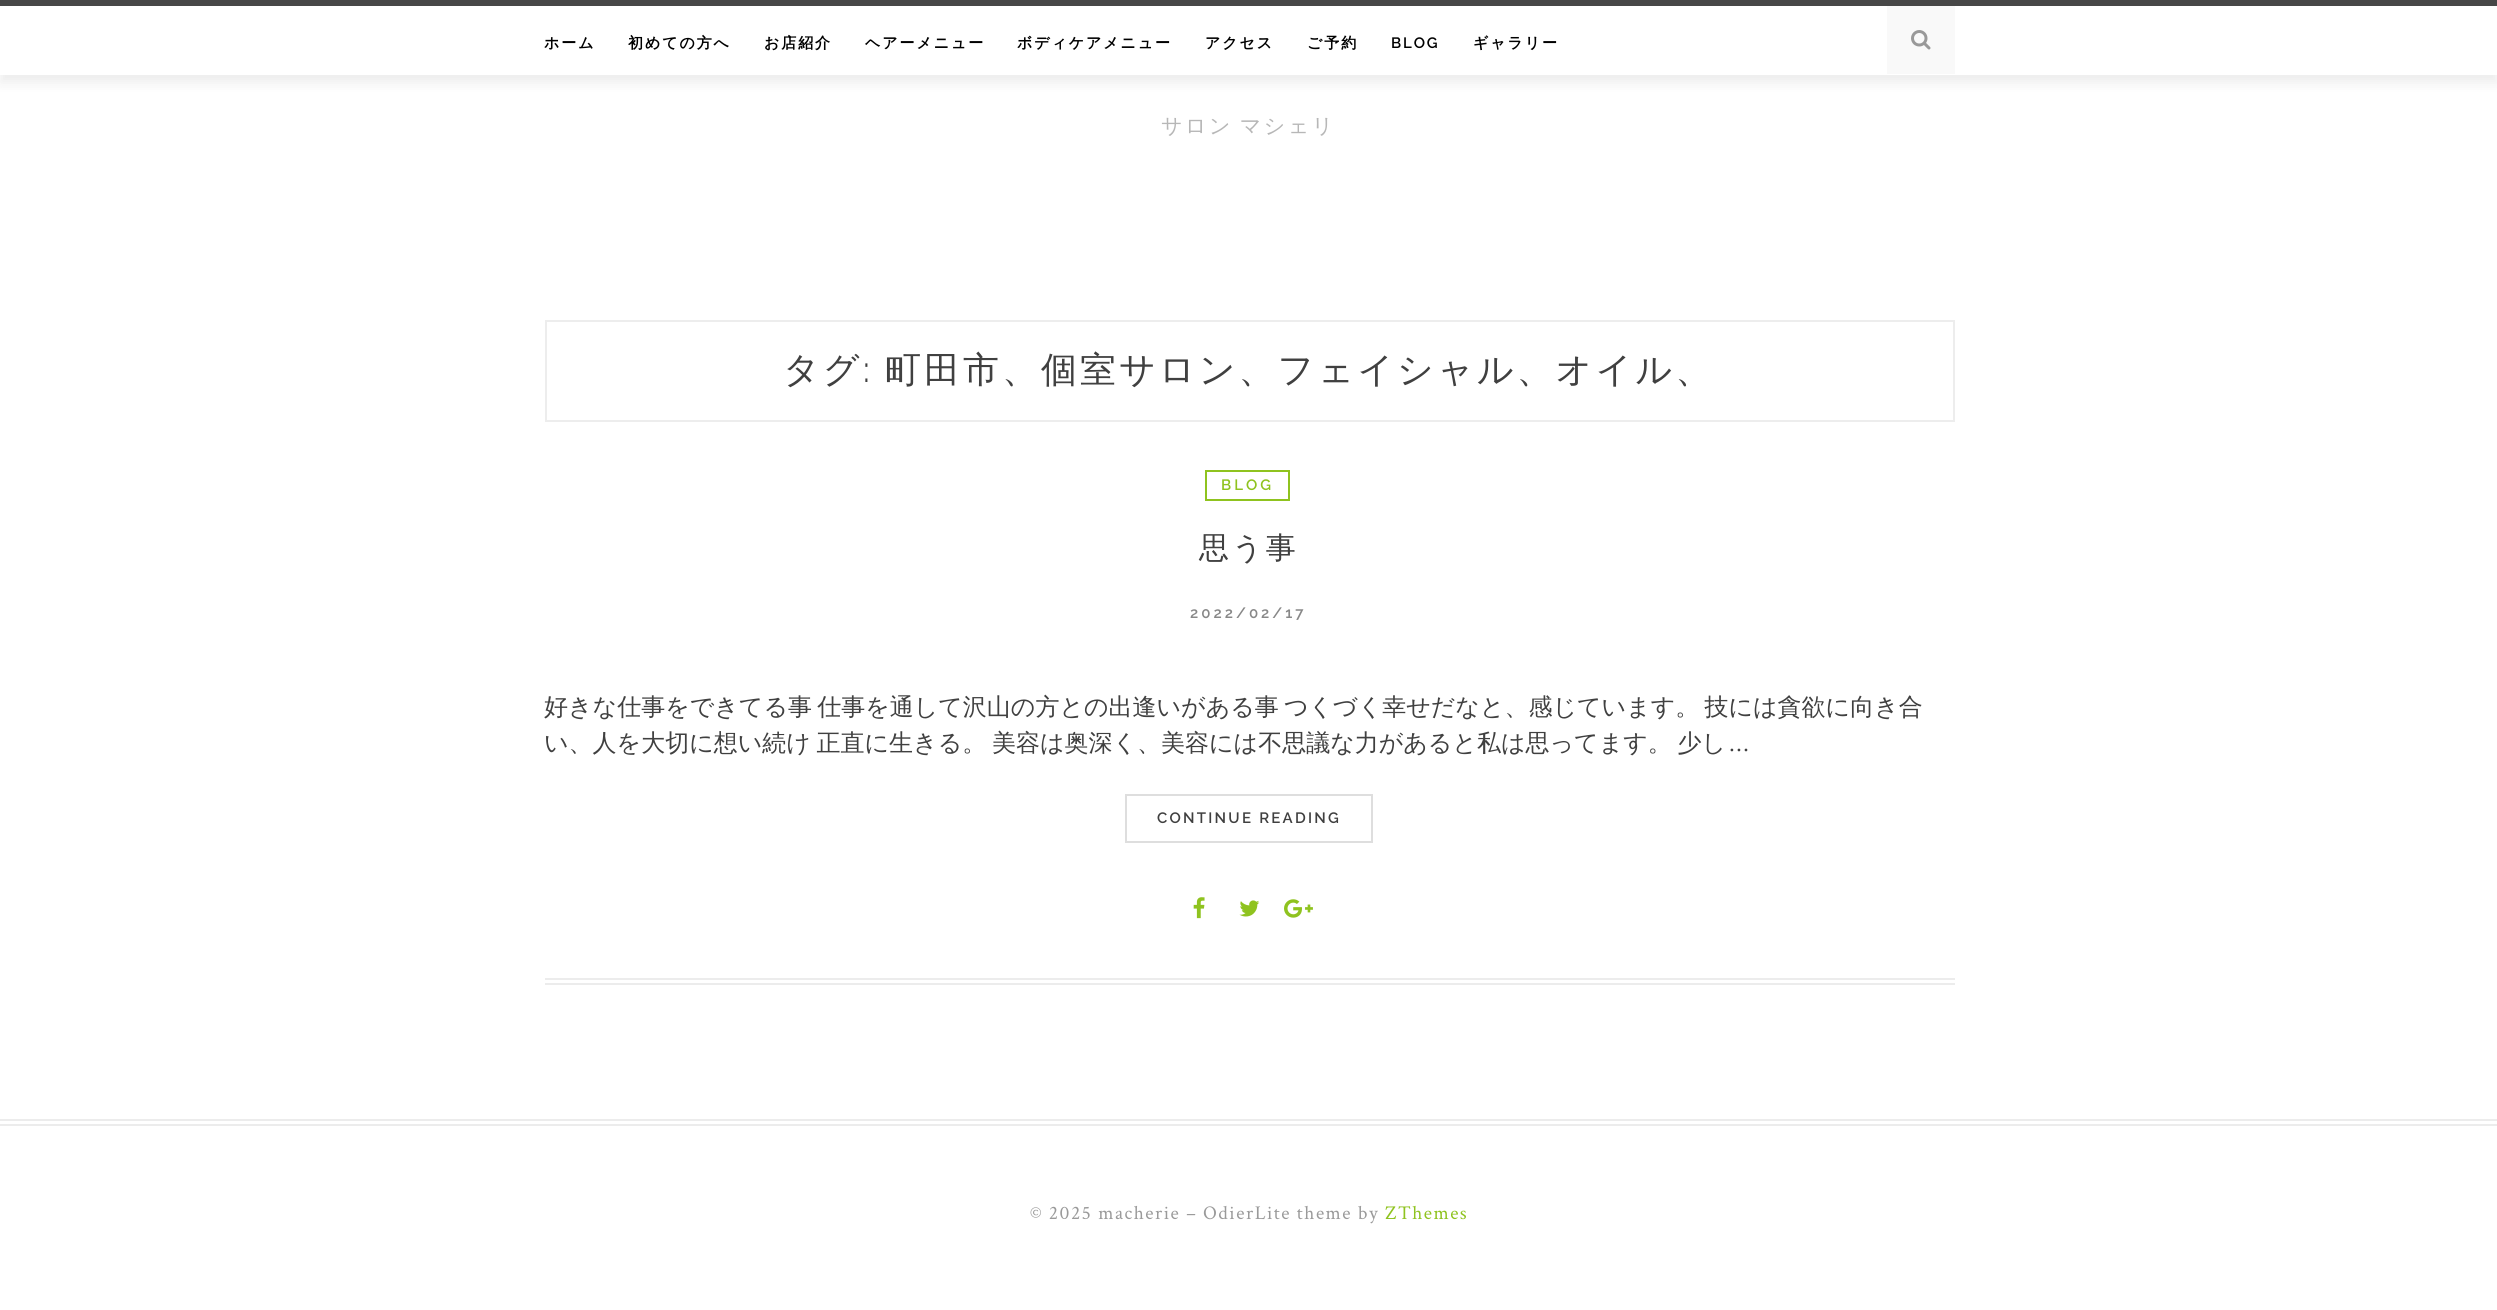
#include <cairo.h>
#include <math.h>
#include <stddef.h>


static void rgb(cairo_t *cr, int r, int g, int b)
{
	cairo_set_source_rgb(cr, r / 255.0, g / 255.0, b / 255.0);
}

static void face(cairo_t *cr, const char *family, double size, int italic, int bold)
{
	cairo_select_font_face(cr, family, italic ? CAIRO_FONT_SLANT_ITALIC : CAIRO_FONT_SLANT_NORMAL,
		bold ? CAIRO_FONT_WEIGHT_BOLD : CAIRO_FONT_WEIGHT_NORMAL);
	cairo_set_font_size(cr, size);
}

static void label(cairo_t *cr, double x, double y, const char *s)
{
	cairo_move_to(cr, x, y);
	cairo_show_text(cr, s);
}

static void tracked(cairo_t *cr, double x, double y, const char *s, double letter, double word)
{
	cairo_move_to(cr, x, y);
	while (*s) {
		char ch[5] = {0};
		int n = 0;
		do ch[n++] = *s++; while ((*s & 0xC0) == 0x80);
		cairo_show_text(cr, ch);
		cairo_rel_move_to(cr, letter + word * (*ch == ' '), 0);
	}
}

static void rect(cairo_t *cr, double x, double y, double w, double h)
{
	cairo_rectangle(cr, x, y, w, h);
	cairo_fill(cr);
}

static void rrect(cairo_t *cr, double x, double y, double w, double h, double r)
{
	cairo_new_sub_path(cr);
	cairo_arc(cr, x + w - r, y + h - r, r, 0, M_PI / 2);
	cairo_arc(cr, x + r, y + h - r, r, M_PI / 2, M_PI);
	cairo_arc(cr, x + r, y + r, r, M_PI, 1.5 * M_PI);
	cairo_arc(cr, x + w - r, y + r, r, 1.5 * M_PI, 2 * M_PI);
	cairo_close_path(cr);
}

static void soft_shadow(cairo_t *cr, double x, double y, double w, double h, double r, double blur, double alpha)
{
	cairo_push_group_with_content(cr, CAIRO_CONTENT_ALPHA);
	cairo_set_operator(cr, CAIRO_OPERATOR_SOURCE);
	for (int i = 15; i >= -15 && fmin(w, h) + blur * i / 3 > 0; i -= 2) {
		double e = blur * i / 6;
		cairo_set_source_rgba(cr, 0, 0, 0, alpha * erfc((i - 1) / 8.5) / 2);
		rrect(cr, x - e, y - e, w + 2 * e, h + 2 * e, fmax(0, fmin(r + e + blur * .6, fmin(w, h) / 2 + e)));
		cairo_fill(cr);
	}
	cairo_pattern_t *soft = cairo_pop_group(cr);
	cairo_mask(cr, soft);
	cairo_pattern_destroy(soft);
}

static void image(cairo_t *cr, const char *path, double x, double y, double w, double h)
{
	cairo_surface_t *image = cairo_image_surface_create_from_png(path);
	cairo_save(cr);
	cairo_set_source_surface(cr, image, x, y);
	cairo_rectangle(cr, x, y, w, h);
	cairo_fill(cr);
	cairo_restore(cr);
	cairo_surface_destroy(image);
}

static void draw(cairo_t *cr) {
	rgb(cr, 255, 255, 255);
	cairo_paint(cr);
	rgb(cr, 22, 22, 22);
	soft_shadow(cr, 0, 8, 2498, 75, 0, 6, 0.08);
	rgb(cr, 255, 255, 255);
	rect(cr, 0, 6, 2497, 69);
	rgb(cr, 71, 71, 71);
	rect(cr, 0, 0, 2497, 6);
	face(cr, "WenQuanYi Zen Hei", 15, 0, 1);
	rgb(cr, 0, 0, 0);
	tracked(cr, 544, 48, "ホーム", 1.9, 0);
	tracked(cr, 628, 48, "初めての方へ", 1.9, 0);
	tracked(cr, 764, 48, "お店紹介", 1.9, 0);
	tracked(cr, 865, 48, "ヘアーメニュー", 1.9, 0);
	tracked(cr, 1017, 48, "ボディケアメニュー", 1.9, 0);
	tracked(cr, 1205, 48, "アクセス", 1.9, 0);
	tracked(cr, 1307, 48, "ご予約", 1.9, 0);
	face(cr, "Raleway SemiBold", 15, 0, 0);
	tracked(cr, 1391, 48, "BLOG", 1.9, 0);
	face(cr, "WenQuanYi Zen Hei", 15, 0, 1);
	tracked(cr, 1473, 48, "ギャラリー", 1.9, 0);
	rgb(cr, 249, 249, 249);
	rect(cr, 1887, 6, 68, 68);
	image(cr, "image0.png", 1911, 30, 20, 20);
	face(cr, "WenQuanYi Zen Hei Medium", 21, 0, 0);
	rgb(cr, 183, 183, 183);
	tracked(cr, 1161, 133, "サロン マシェリ", 2.5, -2);
	cairo_rectangle(cr, 546, 321, 1408, 100);
	rgb(cr, 237, 237, 237);
	cairo_stroke(cr);
	face(cr, "WenQuanYi Zen Hei Medium", 36, 0, 0);
	rgb(cr, 64, 64, 64);
	tracked(cr, 783, 382, "タグ", 3, 0);
	face(cr, "Raleway", 36, 0, 0);
	tracked(cr, 863, 382, ":", 3, 0);
	face(cr, "WenQuanYi Zen Hei Medium", 36, 0, 0);
	tracked(cr, 885, 382, "町田市、個室サロン、フェイシャル、オイル、", 3, 0);
	rgb(cr, 236, 236, 236);
	rect(cr, 545, 978, 1410, 2);
	rect(cr, 545, 983, 1410, 2);
	cairo_rectangle(cr, 1206, 471, 83, 29);
	rgb(cr, 143, 195, 31);
	cairo_stroke(cr);
	face(cr, "Raleway SemiBold", 15, 0, 0);
	tracked(cr, 1221, 490, "BLOG", 3, 0);
	face(cr, "WenQuanYi Zen Hei Medium", 30, 0, 0);
	rgb(cr, 64, 64, 64);
	tracked(cr, 1199, 558, "思う事", 3, 0);
	face(cr, "Raleway SemiBold", 15, 0, 0);
	rgb(cr, 136, 136, 136);
	tracked(cr, 1190, 618, "2022/02/17", 3, 0);
	face(cr, "WenQuanYi Zen Hei Medium", 24, 0, 0);
	rgb(cr, 64, 64, 64);
	tracked(cr, 544, 715, "好きな仕事をできてる事 仕事を通して沢山の方との出逢いがある事 つくづく幸せだなと、感じています。 技には貪欲に向き合", 0, -2);
	tracked(cr, 544, 751, "い、人を大切に想い続け 正直に生きる。 美容は奥深く、美容には不思議な力があると私は思ってます。 少し", 0, -1.5);
	face(cr, "Crimson Text", 24, 0, 0);
	label(cr, 1730, 751, "…");
	cairo_rectangle(cr, 1126, 795, 246, 47);
	rgb(cr, 222, 222, 222);
	cairo_stroke(cr);
	face(cr, "Raleway SemiBold", 15, 0, 0);
	rgb(cr, 64, 64, 64);
	tracked(cr, 1157, 823, "CONTINUE READING", 2.25, 0);
	image(cr, "image1.png", 1193, 897, 12, 22);
	image(cr, "image2.png", 1239, 900, 21, 17);
	image(cr, "image3.png", 1284, 899, 29, 19);
	rgb(cr, 236, 236, 236);
	rect(cr, 0, 1119, 2497, 2);
	rect(cr, 0, 1124, 2497, 2);
	face(cr, "Crimson Text", 19.5, 0, 0);
	rgb(cr, 154, 154, 154);
	tracked(cr, 1030, 1219, "© 2025 macherie – OdierLite theme by", 1.5, 0);
	rgb(cr, 143, 195, 31);
	tracked(cr, 1385, 1219, "ZThemes", 1.5, 0);
}

int main(void) {
	cairo_surface_t *surface = cairo_image_surface_create(CAIRO_FORMAT_RGB24, 2497, 1310);
	cairo_t *cr = cairo_create(surface);
	cairo_font_options_t *options = cairo_font_options_create();
	cairo_font_options_set_hint_metrics(options, CAIRO_HINT_METRICS_OFF);
	cairo_font_options_set_hint_style(options, CAIRO_HINT_STYLE_NONE);
	cairo_set_font_options(cr, options);
	cairo_set_miter_limit(cr, 4);
	draw(cr);
	cairo_surface_write_to_png(surface, "render.png");
	cairo_font_options_destroy(options);
	cairo_destroy(cr);
	cairo_surface_destroy(surface);
	return 0;
}
